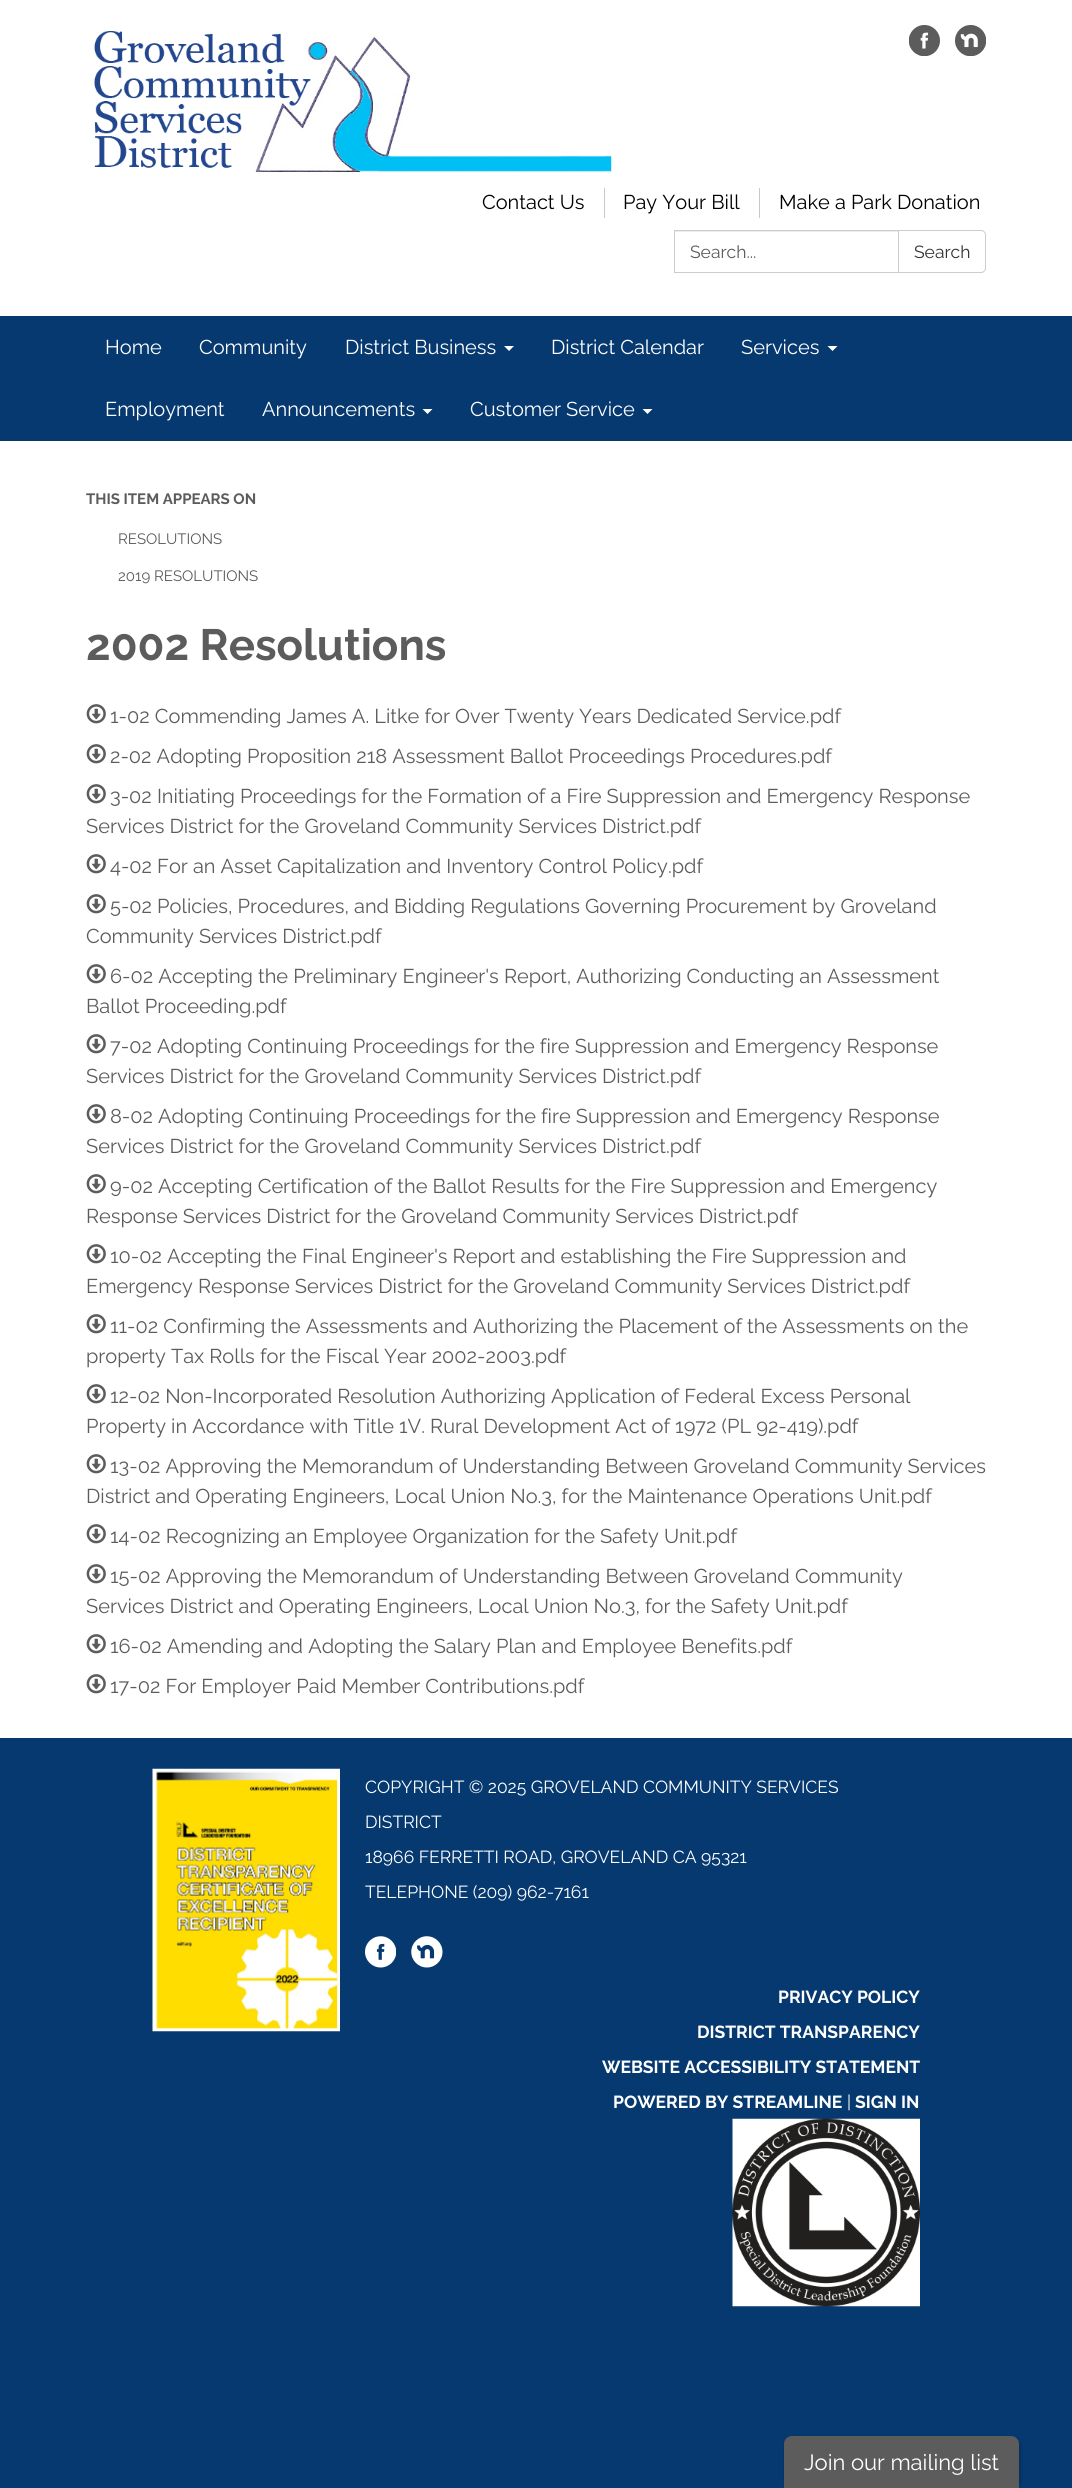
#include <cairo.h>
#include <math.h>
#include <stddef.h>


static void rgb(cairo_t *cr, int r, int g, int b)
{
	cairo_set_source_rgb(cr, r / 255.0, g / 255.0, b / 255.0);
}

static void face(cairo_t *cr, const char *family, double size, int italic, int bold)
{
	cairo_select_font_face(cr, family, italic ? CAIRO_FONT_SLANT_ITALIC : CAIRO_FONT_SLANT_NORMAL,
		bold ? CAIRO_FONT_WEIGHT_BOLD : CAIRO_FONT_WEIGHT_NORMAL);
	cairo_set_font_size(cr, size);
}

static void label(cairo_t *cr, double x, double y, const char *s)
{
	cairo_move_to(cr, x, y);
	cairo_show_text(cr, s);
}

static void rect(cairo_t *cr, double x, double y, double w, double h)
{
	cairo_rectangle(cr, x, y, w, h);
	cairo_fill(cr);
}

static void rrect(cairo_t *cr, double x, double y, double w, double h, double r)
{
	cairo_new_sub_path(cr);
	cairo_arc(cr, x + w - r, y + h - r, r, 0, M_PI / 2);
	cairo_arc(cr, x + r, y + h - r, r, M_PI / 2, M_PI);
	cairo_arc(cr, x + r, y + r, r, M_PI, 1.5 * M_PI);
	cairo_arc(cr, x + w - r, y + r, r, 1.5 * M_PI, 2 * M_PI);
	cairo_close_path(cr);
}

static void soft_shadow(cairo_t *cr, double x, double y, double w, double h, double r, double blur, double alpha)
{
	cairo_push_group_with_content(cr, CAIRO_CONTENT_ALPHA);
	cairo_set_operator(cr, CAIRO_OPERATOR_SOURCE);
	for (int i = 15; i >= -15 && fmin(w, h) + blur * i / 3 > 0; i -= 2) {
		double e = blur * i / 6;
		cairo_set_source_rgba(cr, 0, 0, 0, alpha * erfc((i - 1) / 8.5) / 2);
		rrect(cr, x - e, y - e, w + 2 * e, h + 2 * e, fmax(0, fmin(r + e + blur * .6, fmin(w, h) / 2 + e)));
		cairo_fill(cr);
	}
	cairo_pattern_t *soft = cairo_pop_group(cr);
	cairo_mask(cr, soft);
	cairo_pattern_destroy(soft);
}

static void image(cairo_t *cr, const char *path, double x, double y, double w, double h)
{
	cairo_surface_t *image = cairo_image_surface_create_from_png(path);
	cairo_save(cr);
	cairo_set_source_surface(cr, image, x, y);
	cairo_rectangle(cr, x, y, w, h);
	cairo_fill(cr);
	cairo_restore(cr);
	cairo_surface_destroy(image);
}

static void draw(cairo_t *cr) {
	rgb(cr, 6, 57, 112);
	cairo_paint(cr);
	rgb(cr, 255, 255, 255);
	rect(cr, 0, 0, 1072, 316);
	image(cr, "image0.png", 94, 31, 518, 142);
	image(cr, "image1.png", 909, 25, 31, 31);
	image(cr, "image2.png", 955, 25, 31, 31);
	face(cr, "Raleway", 20, 0, 0);
	rgb(cr, 0, 0, 0);
	label(cr, 482, 209, "Contact Us");
	rgb(cr, 200, 201, 203);
	rect(cr, 604, 188, 1, 30);
	rgb(cr, 0, 0, 0);
	label(cr, 623, 209, "Pay Your Bill");
	rgb(cr, 200, 201, 203);
	rect(cr, 759, 188, 1, 30);
	rgb(cr, 0, 0, 0);
	label(cr, 779, 209, "Make a Park Donation");
	rgb(cr, 236, 236, 236);
	rect(cr, 675, 231, 223, 1);
	cairo_rectangle(cr, 674.5, 230.5, 224, 42);
	rgb(cr, 204, 204, 204);
	cairo_set_line_width(cr, 1);
	cairo_stroke(cr);
	face(cr, "Raleway", 17.5, 0, 0);
	rgb(cr, 92, 92, 92);
	label(cr, 690, 258, "Search...");
	rgb(cr, 255, 255, 255);
	cairo_new_path(cr);
	cairo_move_to(cr, 898.5, 230.5);
	cairo_line_to(cr, 981, 230.5);
	cairo_curve_to(cr, 983.5, 230.5, 985.5, 232.5, 985.5, 235);
	cairo_line_to(cr, 985.5, 268);
	cairo_curve_to(cr, 985.5, 270.5, 983.5, 272.5, 981, 272.5);
	cairo_line_to(cr, 898.5, 272.5);
	cairo_close_path(cr);
	cairo_fill_preserve(cr);
	rgb(cr, 204, 204, 204);
	cairo_stroke(cr);
	rgb(cr, 51, 51, 51);
	label(cr, 914, 258, "Search");
	face(cr, "Raleway", 20, 0, 0);
	rgb(cr, 255, 255, 255);
	label(cr, 105, 354, "Home");
	label(cr, 199, 354, "Community");
	label(cr, 345, 354, "District Business");
	cairo_new_path(cr);
	cairo_move_to(cr, 504, 346);
	cairo_line_to(cr, 514, 346);
	cairo_line_to(cr, 509, 351);
	cairo_close_path(cr);
	cairo_fill(cr);
	label(cr, 551, 354, "District Calendar");
	label(cr, 741, 354, "Services");
	cairo_new_path(cr);
	cairo_move_to(cr, 827.5, 346);
	cairo_line_to(cr, 837.5, 346);
	cairo_line_to(cr, 832.5, 351);
	cairo_close_path(cr);
	cairo_fill(cr);
	label(cr, 105, 416, "Employment");
	label(cr, 262, 416, "Announcements");
	cairo_new_path(cr);
	cairo_move_to(cr, 422.5, 409);
	cairo_line_to(cr, 432.5, 409);
	cairo_line_to(cr, 427.5, 414);
	cairo_close_path(cr);
	cairo_fill(cr);
	label(cr, 470, 416, "Customer Service");
	cairo_new_path(cr);
	cairo_move_to(cr, 642.5, 409);
	cairo_line_to(cr, 652.5, 409);
	cairo_line_to(cr, 647.5, 414);
	cairo_close_path(cr);
	cairo_fill(cr);
	rect(cr, 0, 441, 1072, 1297);
	face(cr, "Raleway", 15, 0, 1);
	rgb(cr, 92, 92, 92);
	label(cr, 86, 504, "THIS ITEM APPEARS ON");
	face(cr, "Raleway", 15, 0, 0);
	label(cr, 118, 544, "RESOLUTIONS");
	label(cr, 118, 581, "2019 RESOLUTIONS");
	face(cr, "Raleway", 43.75, 0, 1);
	label(cr, 86, 660, "2002 Resolutions");
	image(cr, "image3.png", 86, 704, 20, 20);
	face(cr, "Raleway", 20, 0, 0);
	label(cr, 110, 723, "1-02 Commending James A. Litke for Over Twenty Years Dedicated Service.pdf");
	image(cr, "image3.png", 86, 744, 20, 20);
	label(cr, 110, 763, "2-02 Adopting Proposition 218 Assessment Ballot Proceedings Procedures.pdf");
	image(cr, "image3.png", 86, 784, 20, 20);
	label(cr, 110, 803, "3-02 Initiating Proceedings for the Formation of a Fire Suppression and Emergency Response");
	label(cr, 86, 833, "Services District for the Groveland Community Services District.pdf");
	image(cr, "image3.png", 86, 854, 20, 20);
	label(cr, 110, 873, "4-02 For an Asset Capitalization and Inventory Control Policy.pdf");
	image(cr, "image3.png", 86, 894, 20, 20);
	label(cr, 110, 913, "5-02 Policies, Procedures, and Bidding Regulations Governing Procurement by Groveland");
	label(cr, 86, 943, "Community Services District.pdf");
	image(cr, "image3.png", 86, 964, 20, 20);
	label(cr, 110, 983, "6-02 Accepting the Preliminary Engineer's Report, Authorizing Conducting an Assessment");
	label(cr, 86, 1013, "Ballot Proceeding.pdf");
	image(cr, "image3.png", 86, 1034, 20, 20);
	label(cr, 110, 1053, "7-02 Adopting Continuing Proceedings for the fire Suppression and Emergency Response");
	label(cr, 86, 1083, "Services District for the Groveland Community Services District.pdf");
	image(cr, "image3.png", 86, 1104, 20, 20);
	label(cr, 110, 1123, "8-02 Adopting Continuing Proceedings for the fire Suppression and Emergency Response");
	label(cr, 86, 1153, "Services District for the Groveland Community Services District.pdf");
	image(cr, "image3.png", 86, 1174, 20, 20);
	label(cr, 110, 1193, "9-02 Accepting Certification of the Ballot Results for the Fire Suppression and Emergency");
	label(cr, 86, 1223, "Response Services District for the Groveland Community Services District.pdf");
	image(cr, "image3.png", 86, 1244, 20, 20);
	label(cr, 110, 1263, "10-02 Accepting the Final Engineer's Report and establishing the Fire Suppression and");
	label(cr, 86, 1293, "Emergency Response Services District for the Groveland Community Services District.pdf");
	image(cr, "image3.png", 86, 1314, 20, 20);
	label(cr, 110, 1333, "11-02 Confirming the Assessments and Authorizing the Placement of the Assessments on the");
	label(cr, 86, 1363, "property Tax Rolls for the Fiscal Year 2002-2003.pdf");
	image(cr, "image3.png", 86, 1384, 20, 20);
	label(cr, 110, 1403, "12-02 Non-Incorporated Resolution Authorizing Application of Federal Excess Personal");
	label(cr, 86, 1433, "Property in Accordance with Title 1V. Rural Development Act of 1972 (PL 92-419).pdf");
	image(cr, "image3.png", 86, 1454, 20, 20);
	label(cr, 110, 1473, "13-02 Approving the Memorandum of Understanding Between Groveland Community Services");
	label(cr, 86, 1503, "District and Operating Engineers, Local Union No.3, for the Maintenance Operations Unit.pdf");
	image(cr, "image3.png", 86, 1524, 20, 20);
	label(cr, 110, 1543, "14-02 Recognizing an Employee Organization for the Safety Unit.pdf");
	image(cr, "image3.png", 86, 1564, 20, 20);
	label(cr, 110, 1583, "15-02 Approving the Memorandum of Understanding Between Groveland Community");
	label(cr, 86, 1613, "Services District and Operating Engineers, Local Union No.3, for the Safety Unit.pdf");
	image(cr, "image3.png", 86, 1634, 20, 20);
	label(cr, 110, 1653, "16-02 Amending and Adopting the Salary Plan and Employee Benefits.pdf");
	image(cr, "image3.png", 86, 1674, 20, 20);
	label(cr, 110, 1693, "17-02 For Employer Paid Member Contributions.pdf");
	image(cr, "image4.png", 152, 1768, 188, 264);
	face(cr, "Raleway", 17.5, 0, 0);
	rgb(cr, 255, 255, 255);
	label(cr, 365, 1793, "COPYRIGHT © 2025 GROVELAND COMMUNITY SERVICES");
	label(cr, 365, 1828, "DISTRICT");
	label(cr, 365, 1863, "18966 FERRETTI ROAD, GROVELAND CA 95321");
	label(cr, 365, 1898, "TELEPHONE (209) 962-7161");
	image(cr, "image5.png", 365, 1936, 31, 32);
	image(cr, "image6.png", 411, 1936, 32, 32);
	face(cr, "Raleway", 17.5, 0, 1);
	label(cr, 778, 2003, "PRIVACY POLICY");
	label(cr, 697, 2038, "DISTRICT TRANSPARENCY");
	label(cr, 602, 2073, "WEBSITE ACCESSIBILITY STATEMENT");
	label(cr, 613, 2108, "POWERED BY STREAMLINE");
	face(cr, "Raleway", 17.5, 0, 0);
	label(cr, 847, 2108, "|");
	face(cr, "Raleway", 17.5, 0, 1);
	label(cr, 855, 2108, "SIGN IN");
	image(cr, "image7.png", 732, 2118, 188, 189);
	rgb(cr, 0, 0, 0);
	soft_shadow(cr, 785, 2438, 235, 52, 8, 2, 0.3);
	rgb(cr, 92, 92, 92);
	cairo_new_path(cr);
	cairo_move_to(cr, 792, 2436);
	cairo_line_to(cr, 1011, 2436);
	cairo_curve_to(cr, 1015.5, 2436, 1019, 2439.5, 1019, 2444);
	cairo_line_to(cr, 1019, 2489);
	cairo_line_to(cr, 784, 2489);
	cairo_line_to(cr, 784, 2444);
	cairo_curve_to(cr, 784, 2439.5, 787.5, 2436, 792, 2436);
	cairo_close_path(cr);
	cairo_fill(cr);
	face(cr, "Raleway", 22, 0, 0);
	rgb(cr, 255, 255, 255);
	label(cr, 804, 2470, "Join our mailing list");
}

int main(void) {
	cairo_surface_t *surface = cairo_image_surface_create(CAIRO_FORMAT_RGB24, 1072, 2488);
	cairo_t *cr = cairo_create(surface);
	cairo_font_options_t *options = cairo_font_options_create();
	cairo_font_options_set_hint_metrics(options, CAIRO_HINT_METRICS_OFF);
	cairo_font_options_set_hint_style(options, CAIRO_HINT_STYLE_NONE);
	cairo_set_font_options(cr, options);
	cairo_set_miter_limit(cr, 4);
	draw(cr);
	cairo_surface_write_to_png(surface, "render.png");
	cairo_font_options_destroy(options);
	cairo_destroy(cr);
	cairo_surface_destroy(surface);
	return 0;
}
